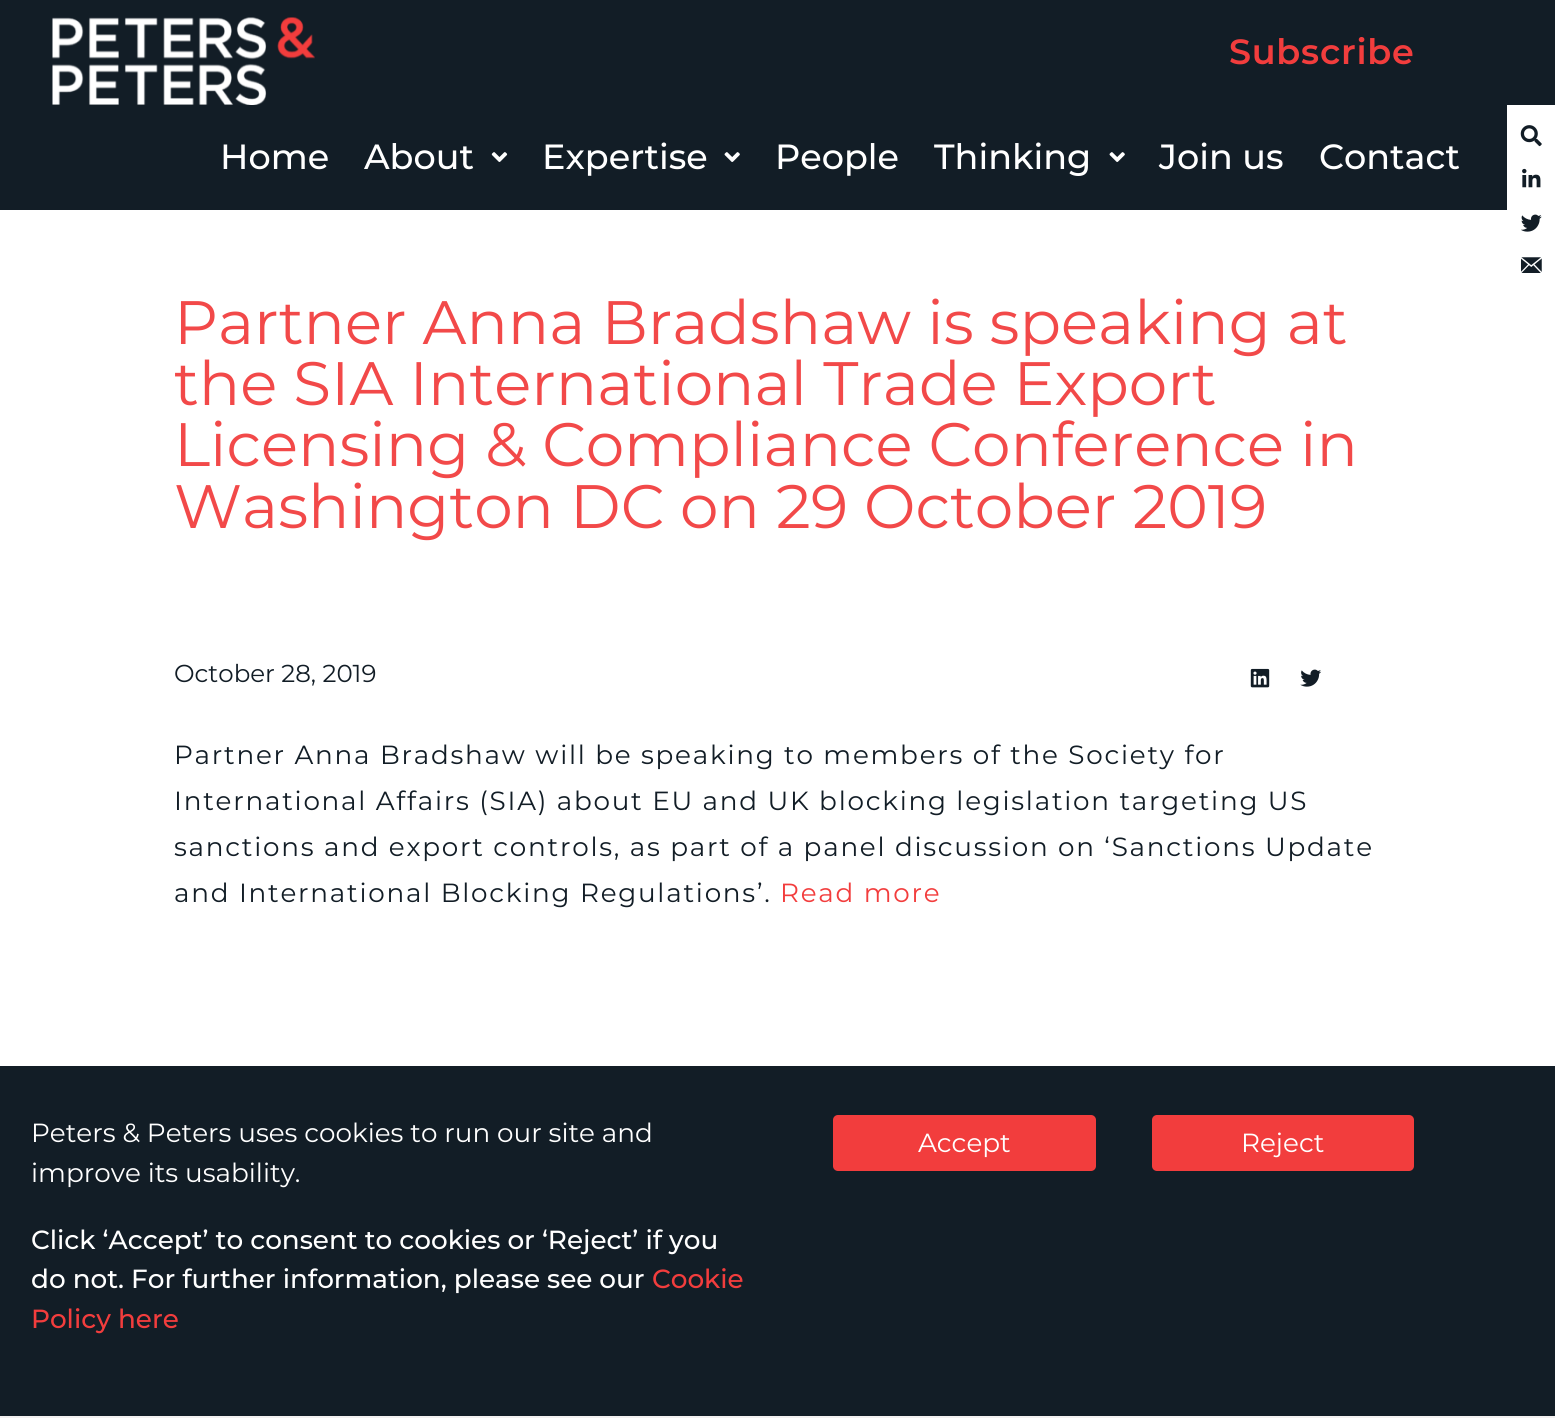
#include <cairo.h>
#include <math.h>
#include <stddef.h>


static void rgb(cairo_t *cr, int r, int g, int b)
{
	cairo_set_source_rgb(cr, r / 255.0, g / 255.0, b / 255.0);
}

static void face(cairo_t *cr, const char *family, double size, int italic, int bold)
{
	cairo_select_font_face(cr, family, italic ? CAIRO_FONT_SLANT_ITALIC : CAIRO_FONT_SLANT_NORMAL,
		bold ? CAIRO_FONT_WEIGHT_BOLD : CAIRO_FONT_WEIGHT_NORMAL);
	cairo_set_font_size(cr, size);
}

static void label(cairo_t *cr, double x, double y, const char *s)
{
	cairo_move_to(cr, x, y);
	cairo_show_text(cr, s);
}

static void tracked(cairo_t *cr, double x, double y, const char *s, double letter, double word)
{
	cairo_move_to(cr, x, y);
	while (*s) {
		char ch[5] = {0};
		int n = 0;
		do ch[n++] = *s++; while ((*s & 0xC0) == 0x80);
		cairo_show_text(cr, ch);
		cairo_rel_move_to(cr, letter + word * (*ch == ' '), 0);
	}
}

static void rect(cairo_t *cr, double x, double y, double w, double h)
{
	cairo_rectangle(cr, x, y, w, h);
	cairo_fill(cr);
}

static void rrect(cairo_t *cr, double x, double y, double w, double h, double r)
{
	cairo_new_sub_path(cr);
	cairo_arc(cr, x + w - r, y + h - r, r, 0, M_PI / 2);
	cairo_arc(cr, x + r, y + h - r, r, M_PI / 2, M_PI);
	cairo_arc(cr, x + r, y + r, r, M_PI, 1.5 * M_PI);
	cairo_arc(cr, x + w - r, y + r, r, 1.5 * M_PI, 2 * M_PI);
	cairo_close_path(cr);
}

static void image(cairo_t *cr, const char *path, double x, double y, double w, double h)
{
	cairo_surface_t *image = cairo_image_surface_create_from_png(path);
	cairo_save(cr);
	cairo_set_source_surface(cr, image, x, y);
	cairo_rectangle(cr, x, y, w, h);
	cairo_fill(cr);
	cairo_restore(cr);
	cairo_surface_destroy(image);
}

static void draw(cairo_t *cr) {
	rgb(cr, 255, 255, 255);
	cairo_paint(cr);
	rgb(cr, 18, 29, 38);
	rect(cr, 0, 0, 1555, 210);
	image(cr, "image0.png", 52, 17, 263, 88);
	face(cr, "Montserrat SemiBold", 35, 0, 0);
	rgb(cr, 242, 61, 61);
	tracked(cr, 1229, 64, "Subscribe", 0.75, 0);
	rgb(cr, 255, 255, 255);
	rect(cr, 1507, 105, 48, 105);
	image(cr, "image1.png", 1520, 125, 22, 22);
	image(cr, "image2.png", 1522, 168, 19, 20);
	image(cr, "image3.png", 1521, 214, 21, 18);
	image(cr, "image4.png", 1521, 257, 21, 16);
	face(cr, "Montserrat Medium", 35, 0, 0);
	label(cr, 220, 169, "Home");
	label(cr, 364, 169, "About");
	image(cr, "image5.png", 491, 152, 17, 10);
	label(cr, 542, 169, "Expertise");
	image(cr, "image6.png", 724, 152, 16, 10);
	label(cr, 775, 169, "People");
	label(cr, 934, 169, "Thinking");
	image(cr, "image6.png", 1109, 152, 16, 10);
	label(cr, 1159, 169, "Join us");
	label(cr, 1319, 169, "Contact");
	face(cr, "Montserrat", 61.25, 0, 0);
	rgb(cr, 242, 73, 73);
	label(cr, 174, 344, "Partner Anna Bradshaw is speaking at");
	label(cr, 174, 405, "the SIA International Trade Export");
	label(cr, 174, 466, "Licensing & Compliance Conference in");
	label(cr, 174, 528, "Washington DC on 29 October 2019");
	face(cr, "Montserrat", 24.5, 0, 0);
	rgb(cr, 18, 29, 38);
	label(cr, 174, 682, "October 28, 2019");
	image(cr, "image7.png", 1250, 668, 20, 20);
	image(cr, "image8.png", 1300, 669, 22, 18);
	face(cr, "Montserrat", 26.25, 0, 0);
	tracked(cr, 174, 764, "Partner Anna Bradshaw will be speaking to members of the Society for", 1.75, 0);
	tracked(cr, 174, 810, "International Affairs (SIA) about EU and UK blocking legislation targeting US", 1.75, 0);
	tracked(cr, 174, 856, "sanctions and export controls, as part of a panel discussion on ‘Sanctions Update", 1.75, 0);
	tracked(cr, 174, 902, "and International Blocking Regulations’.", 1.75, 0);
	rgb(cr, 242, 61, 61);
	tracked(cr, 780, 902, "Read more", 1.75, 0);
	rgb(cr, 18, 29, 38);
	rect(cr, 0, 1066, 1555, 350);
	rgb(cr, 242, 240, 240);
	rect(cr, 0, 1416, 1555, 2);
	rgb(cr, 255, 255, 255);
	label(cr, 31, 1142, "Peters & Peters uses cookies to run our site and");
	label(cr, 31, 1182, "improve its usability.");
	face(cr, "Montserrat Medium", 26.25, 0, 0);
	label(cr, 31, 1249, "Click ‘Accept’ to consent to cookies or ‘Reject’ if you");
	label(cr, 31, 1288, "do not. For further information, please see our");
	rgb(cr, 242, 61, 61);
	label(cr, 652, 1288, "Cookie");
	label(cr, 31, 1328, "Policy here");
	rrect(cr, 833, 1115, 263, 56, 5);
	cairo_fill(cr);
	face(cr, "Montserrat", 26.25, 0, 0);
	rgb(cr, 255, 255, 255);
	label(cr, 918, 1152, "Accept");
	rgb(cr, 242, 61, 61);
	rrect(cr, 1152, 1115, 262, 56, 5);
	cairo_fill(cr);
	rgb(cr, 255, 255, 255);
	label(cr, 1241, 1152, "Reject");
}

int main(void) {
	cairo_surface_t *surface = cairo_image_surface_create(CAIRO_FORMAT_RGB24, 1555, 1418);
	cairo_t *cr = cairo_create(surface);
	cairo_font_options_t *options = cairo_font_options_create();
	cairo_font_options_set_hint_metrics(options, CAIRO_HINT_METRICS_OFF);
	cairo_font_options_set_hint_style(options, CAIRO_HINT_STYLE_NONE);
	cairo_set_font_options(cr, options);
	cairo_set_miter_limit(cr, 4);
	draw(cr);
	cairo_surface_write_to_png(surface, "render.png");
	cairo_font_options_destroy(options);
	cairo_destroy(cr);
	cairo_surface_destroy(surface);
	return 0;
}
